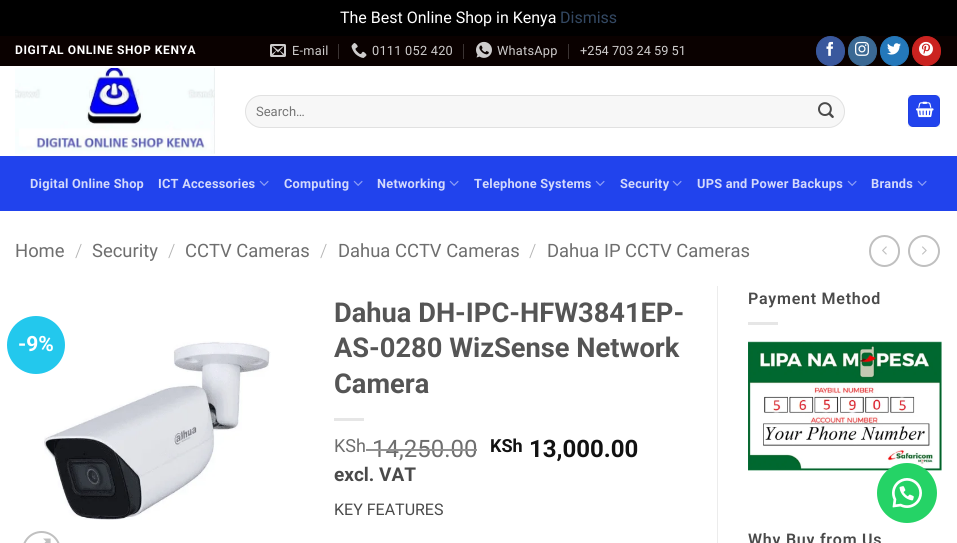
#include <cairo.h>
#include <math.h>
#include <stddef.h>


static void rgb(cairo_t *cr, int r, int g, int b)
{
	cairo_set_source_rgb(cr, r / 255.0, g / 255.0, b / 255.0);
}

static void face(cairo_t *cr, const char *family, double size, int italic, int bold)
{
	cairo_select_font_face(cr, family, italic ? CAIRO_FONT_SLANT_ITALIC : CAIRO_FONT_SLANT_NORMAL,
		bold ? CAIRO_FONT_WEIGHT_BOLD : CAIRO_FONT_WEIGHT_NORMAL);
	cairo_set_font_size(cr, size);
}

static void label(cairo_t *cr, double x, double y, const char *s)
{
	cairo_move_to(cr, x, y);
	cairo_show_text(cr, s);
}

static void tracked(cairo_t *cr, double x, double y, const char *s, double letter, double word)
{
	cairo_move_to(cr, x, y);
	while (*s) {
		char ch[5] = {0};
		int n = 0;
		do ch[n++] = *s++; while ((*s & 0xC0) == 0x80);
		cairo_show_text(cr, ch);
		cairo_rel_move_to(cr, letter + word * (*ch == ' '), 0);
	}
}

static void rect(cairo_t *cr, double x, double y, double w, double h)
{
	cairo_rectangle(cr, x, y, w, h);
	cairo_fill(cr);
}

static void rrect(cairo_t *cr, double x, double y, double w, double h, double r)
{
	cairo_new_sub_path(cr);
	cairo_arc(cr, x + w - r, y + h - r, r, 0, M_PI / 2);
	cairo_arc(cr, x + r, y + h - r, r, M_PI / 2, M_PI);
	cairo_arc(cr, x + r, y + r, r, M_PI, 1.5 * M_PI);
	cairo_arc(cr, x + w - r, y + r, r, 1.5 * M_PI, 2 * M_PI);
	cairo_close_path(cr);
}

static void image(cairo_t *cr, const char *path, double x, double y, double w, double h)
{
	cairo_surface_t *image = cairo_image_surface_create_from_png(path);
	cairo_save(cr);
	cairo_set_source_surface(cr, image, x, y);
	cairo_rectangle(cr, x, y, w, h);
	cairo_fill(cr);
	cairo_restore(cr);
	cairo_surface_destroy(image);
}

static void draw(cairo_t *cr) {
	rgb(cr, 0, 0, 0);
	cairo_paint(cr);
	face(cr, "Roboto", 16, 0, 0);
	rgb(cr, 255, 255, 255);
	label(cr, 340, 23, "The Best Online Shop in Kenya");
	rgb(cr, 51, 72, 98);
	label(cr, 560, 23, "Dismiss");
	rgb(cr, 255, 255, 255);
	rect(cr, 0, 66, 957, 477);
	rgb(cr, 10, 1, 0);
	rect(cr, 0, 36, 957, 30);
	face(cr, "Roboto", 12, 0, 1);
	rgb(cr, 255, 255, 255);
	tracked(cr, 15, 54, "DIGITAL ONLINE SHOP KENYA", 0.6, 0);
	image(cr, "image0.png", 270, 44, 16, 13);
	face(cr, "Roboto", 12.75, 0, 0);
	rgb(cr, 206, 204, 204);
	tracked(cr, 292, 55, "E-mail", 0.25, 0);
	rgb(cr, 59, 52, 51);
	rect(cr, 338, 44, 1, 15);
	image(cr, "image1.png", 351, 43, 16, 15);
	rgb(cr, 206, 204, 204);
	tracked(cr, 372, 55, "0111 052 420", 0.25, 0);
	rgb(cr, 59, 52, 51);
	rect(cr, 463, 44, 1, 15);
	image(cr, "image2.png", 476, 41, 16, 17);
	rgb(cr, 206, 204, 204);
	tracked(cr, 497, 55, "WhatsApp", 0.25, 0);
	rgb(cr, 59, 52, 51);
	rect(cr, 568, 44, 1, 15);
	rgb(cr, 206, 204, 204);
	label(cr, 580, 55, "+254 703 24 59 51");
	rgb(cr, 58, 88, 157);
	rrect(cr, 816.5, 36.5, 28, 29, 14);
	cairo_fill_preserve(cr);
	cairo_set_line_width(cr, 1);
	cairo_stroke(cr);
	image(cr, "image3.png", 826, 41, 7, 15);
	rgb(cr, 59, 105, 148);
	rrect(cr, 848.5, 36.5, 28, 29, 14);
	cairo_fill_preserve(cr);
	cairo_stroke(cr);
	image(cr, "image4.png", 855, 41, 14, 15);
	rgb(cr, 36, 120, 186);
	rrect(cr, 880.5, 36.5, 28, 29, 14);
	cairo_fill_preserve(cr);
	cairo_stroke(cr);
	image(cr, "image5.png", 887, 43, 14, 12);
	rgb(cr, 203, 35, 32);
	rrect(cr, 912.5, 36.5, 28, 29, 14);
	cairo_fill_preserve(cr);
	cairo_stroke(cr);
	image(cr, "image6.png", 919, 41, 14, 15);
	image(cr, "image7.png", 15, 68, 200, 86);
	rgb(cr, 247, 247, 247);
	rrect(cr, 245, 95, 600, 33, 16.5);
	cairo_fill(cr);
	rrect(cr, 245.5, 95.5, 599, 32, 16);
	cairo_set_source_rgba(cr, 0, 0, 0, 0.09);
	cairo_stroke(cr);
	face(cr, "Roboto", 13, 0, 0);
	rgb(cr, 117, 117, 117);
	label(cr, 256, 116, "Search…");
	image(cr, "image8.png", 818, 102, 16, 16);
	rgb(cr, 33, 67, 237);
	rrect(cr, 908, 95, 32, 32, 5);
	cairo_fill(cr);
	cairo_rectangle(cr, 908.5, 95.5, 31, 31);
	cairo_set_source_rgba(cr, 0, 0, 0, 0.05);
	cairo_stroke(cr);
	image(cr, "image9.png", 916, 101, 18, 17);
	rgb(cr, 33, 67, 237);
	rect(cr, 0, 156, 957, 55);
	rgb(cr, 37, 68, 221);
	rect(cr, 15, 156, 927, 1);
	face(cr, "Roboto", 12.75, 0, 1);
	rgb(cr, 211, 217, 251);
	tracked(cr, 30, 188, "Digital Online Shop", 0.25, 0);
	tracked(cr, 158, 188, "ICT Accessories", 0.25, 0);
	image(cr, "image10.png", 259, 180, 10, 6);
	tracked(cr, 284, 188, "Computing", 0.25, 0);
	image(cr, "image10.png", 353, 180, 10, 6);
	tracked(cr, 377, 188, "Networking", 0.25, 0);
	image(cr, "image10.png", 449, 180, 10, 6);
	tracked(cr, 474, 188, "Telephone Systems", 0.25, 0);
	image(cr, "image10.png", 595, 180, 10, 6);
	tracked(cr, 620, 188, "Security", 0.25, 0);
	image(cr, "image10.png", 672, 180, 10, 6);
	tracked(cr, 697, 188, "UPS and Power Backups", 0.25, 0);
	image(cr, "image10.png", 847, 180, 10, 6);
	tracked(cr, 871, 188, "Brands", 0.25, 0);
	image(cr, "image10.png", 917, 180, 10, 6);
	face(cr, "Roboto", 18.4, 0, 0);
	rgb(cr, 110, 110, 110);
	label(cr, 15, 257, "Home");
	face(cr, "Roboto Light", 18.4, 0, 0);
	rgb(cr, 178, 178, 178);
	label(cr, 75, 257, "/");
	face(cr, "Roboto", 18.4, 0, 0);
	rgb(cr, 110, 110, 110);
	label(cr, 92, 257, "Security");
	face(cr, "Roboto Light", 18.4, 0, 0);
	rgb(cr, 178, 178, 178);
	label(cr, 168, 257, "/");
	face(cr, "Roboto", 18.4, 0, 0);
	rgb(cr, 110, 110, 110);
	label(cr, 185, 257, "CCTV Cameras");
	face(cr, "Roboto Light", 18.4, 0, 0);
	rgb(cr, 178, 178, 178);
	label(cr, 320, 257, "/");
	face(cr, "Roboto", 18.4, 0, 0);
	rgb(cr, 110, 110, 110);
	label(cr, 338, 257, "Dahua CCTV Cameras");
	face(cr, "Roboto Light", 18.4, 0, 0);
	rgb(cr, 178, 178, 178);
	label(cr, 529, 257, "/");
	face(cr, "Roboto", 18.4, 0, 0);
	rgb(cr, 110, 110, 110);
	label(cr, 547, 257, "Dahua IP CCTV Cameras");
	rrect(cr, 870, 236, 29, 30, 14.5);
	rgb(cr, 192, 192, 192);
	cairo_set_line_width(cr, 2);
	cairo_stroke(cr);
	image(cr, "image11.png", 882, 246, 5, 9);
	cairo_arc(cr, 924, 251, 15, 0, 2 * M_PI);
	cairo_stroke(cr);
	image(cr, "image12.png", 922, 246, 5, 9);
	image(cr, "image13.png", 42, 341, 229, 179);
	rgb(cr, 35, 200, 237);
	cairo_arc(cr, 36, 345, 29, 0, 2 * M_PI);
	cairo_fill(cr);
	face(cr, "Roboto", 21, 0, 1);
	rgb(cr, 255, 255, 255);
	label(cr, 18, 351, "-9%");
	rrect(cr, 23, 532, 37, 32, 18.5);
	rgb(cr, 192, 192, 192);
	cairo_stroke(cr);
	image(cr, "image14.png", 43, 538, 8, 5);
	rgb(cr, 236, 236, 236);
	rect(cr, 717, 286, 1, 257);
	face(cr, "Roboto", 27.25, 0, 1);
	rgb(cr, 85, 85, 85);
	label(cr, 334, 322, "Dahua DH-IPC-HFW3841EP-");
	label(cr, 334, 357, "AS-0280 WizSense Network");
	label(cr, 334, 393, "Camera");
	rgb(cr, 230, 230, 230);
	rect(cr, 334, 418, 30, 3);
	face(cr, "Roboto", 18, 0, 0);
	rgb(cr, 110, 110, 110);
	label(cr, 334, 452, "KSh");
	face(cr, "Roboto", 24, 0, 0);
	label(cr, 372, 457, "14,250.00");
	rgb(cr, 146, 146, 146);
	rect(cr, 366, 449, 111, 2);
	face(cr, "Roboto", 18, 0, 1);
	rgb(cr, 17, 17, 17);
	label(cr, 490, 452, "KSh");
	face(cr, "Roboto", 24, 0, 1);
	label(cr, 529, 457, "13,000.00");
	face(cr, "Roboto", 19, 0, 1);
	rgb(cr, 74, 74, 74);
	label(cr, 334, 481, "excl. VAT");
	face(cr, "Roboto", 16, 0, 0);
	label(cr, 334, 515, "KEY FEATURES");
	face(cr, "Roboto SemiBold", 16, 0, 0);
	tracked(cr, 748, 304, "Payment Method", 0.75, 0);
	rgb(cr, 230, 230, 230);
	rect(cr, 748, 322, 30, 3);
	image(cr, "image15.png", 748, 341, 194, 130);
	rgb(cr, 74, 74, 74);
	tracked(cr, 748, 545, "Why Buy from Us", 0.75, 0);
	rgb(cr, 37, 211, 102);
	cairo_new_path(cr);
	cairo_arc(cr, 907, 493, 30, 0, 2 * M_PI);
	cairo_fill(cr);
	image(cr, "image16.png", 892, 478, 30, 30);
}

int main(void) {
	cairo_surface_t *surface = cairo_image_surface_create(CAIRO_FORMAT_RGB24, 957, 543);
	cairo_t *cr = cairo_create(surface);
	cairo_font_options_t *options = cairo_font_options_create();
	cairo_font_options_set_hint_metrics(options, CAIRO_HINT_METRICS_OFF);
	cairo_font_options_set_hint_style(options, CAIRO_HINT_STYLE_NONE);
	cairo_set_font_options(cr, options);
	cairo_set_miter_limit(cr, 4);
	draw(cr);
	cairo_surface_write_to_png(surface, "render.png");
	cairo_font_options_destroy(options);
	cairo_destroy(cr);
	cairo_surface_destroy(surface);
	return 0;
}
